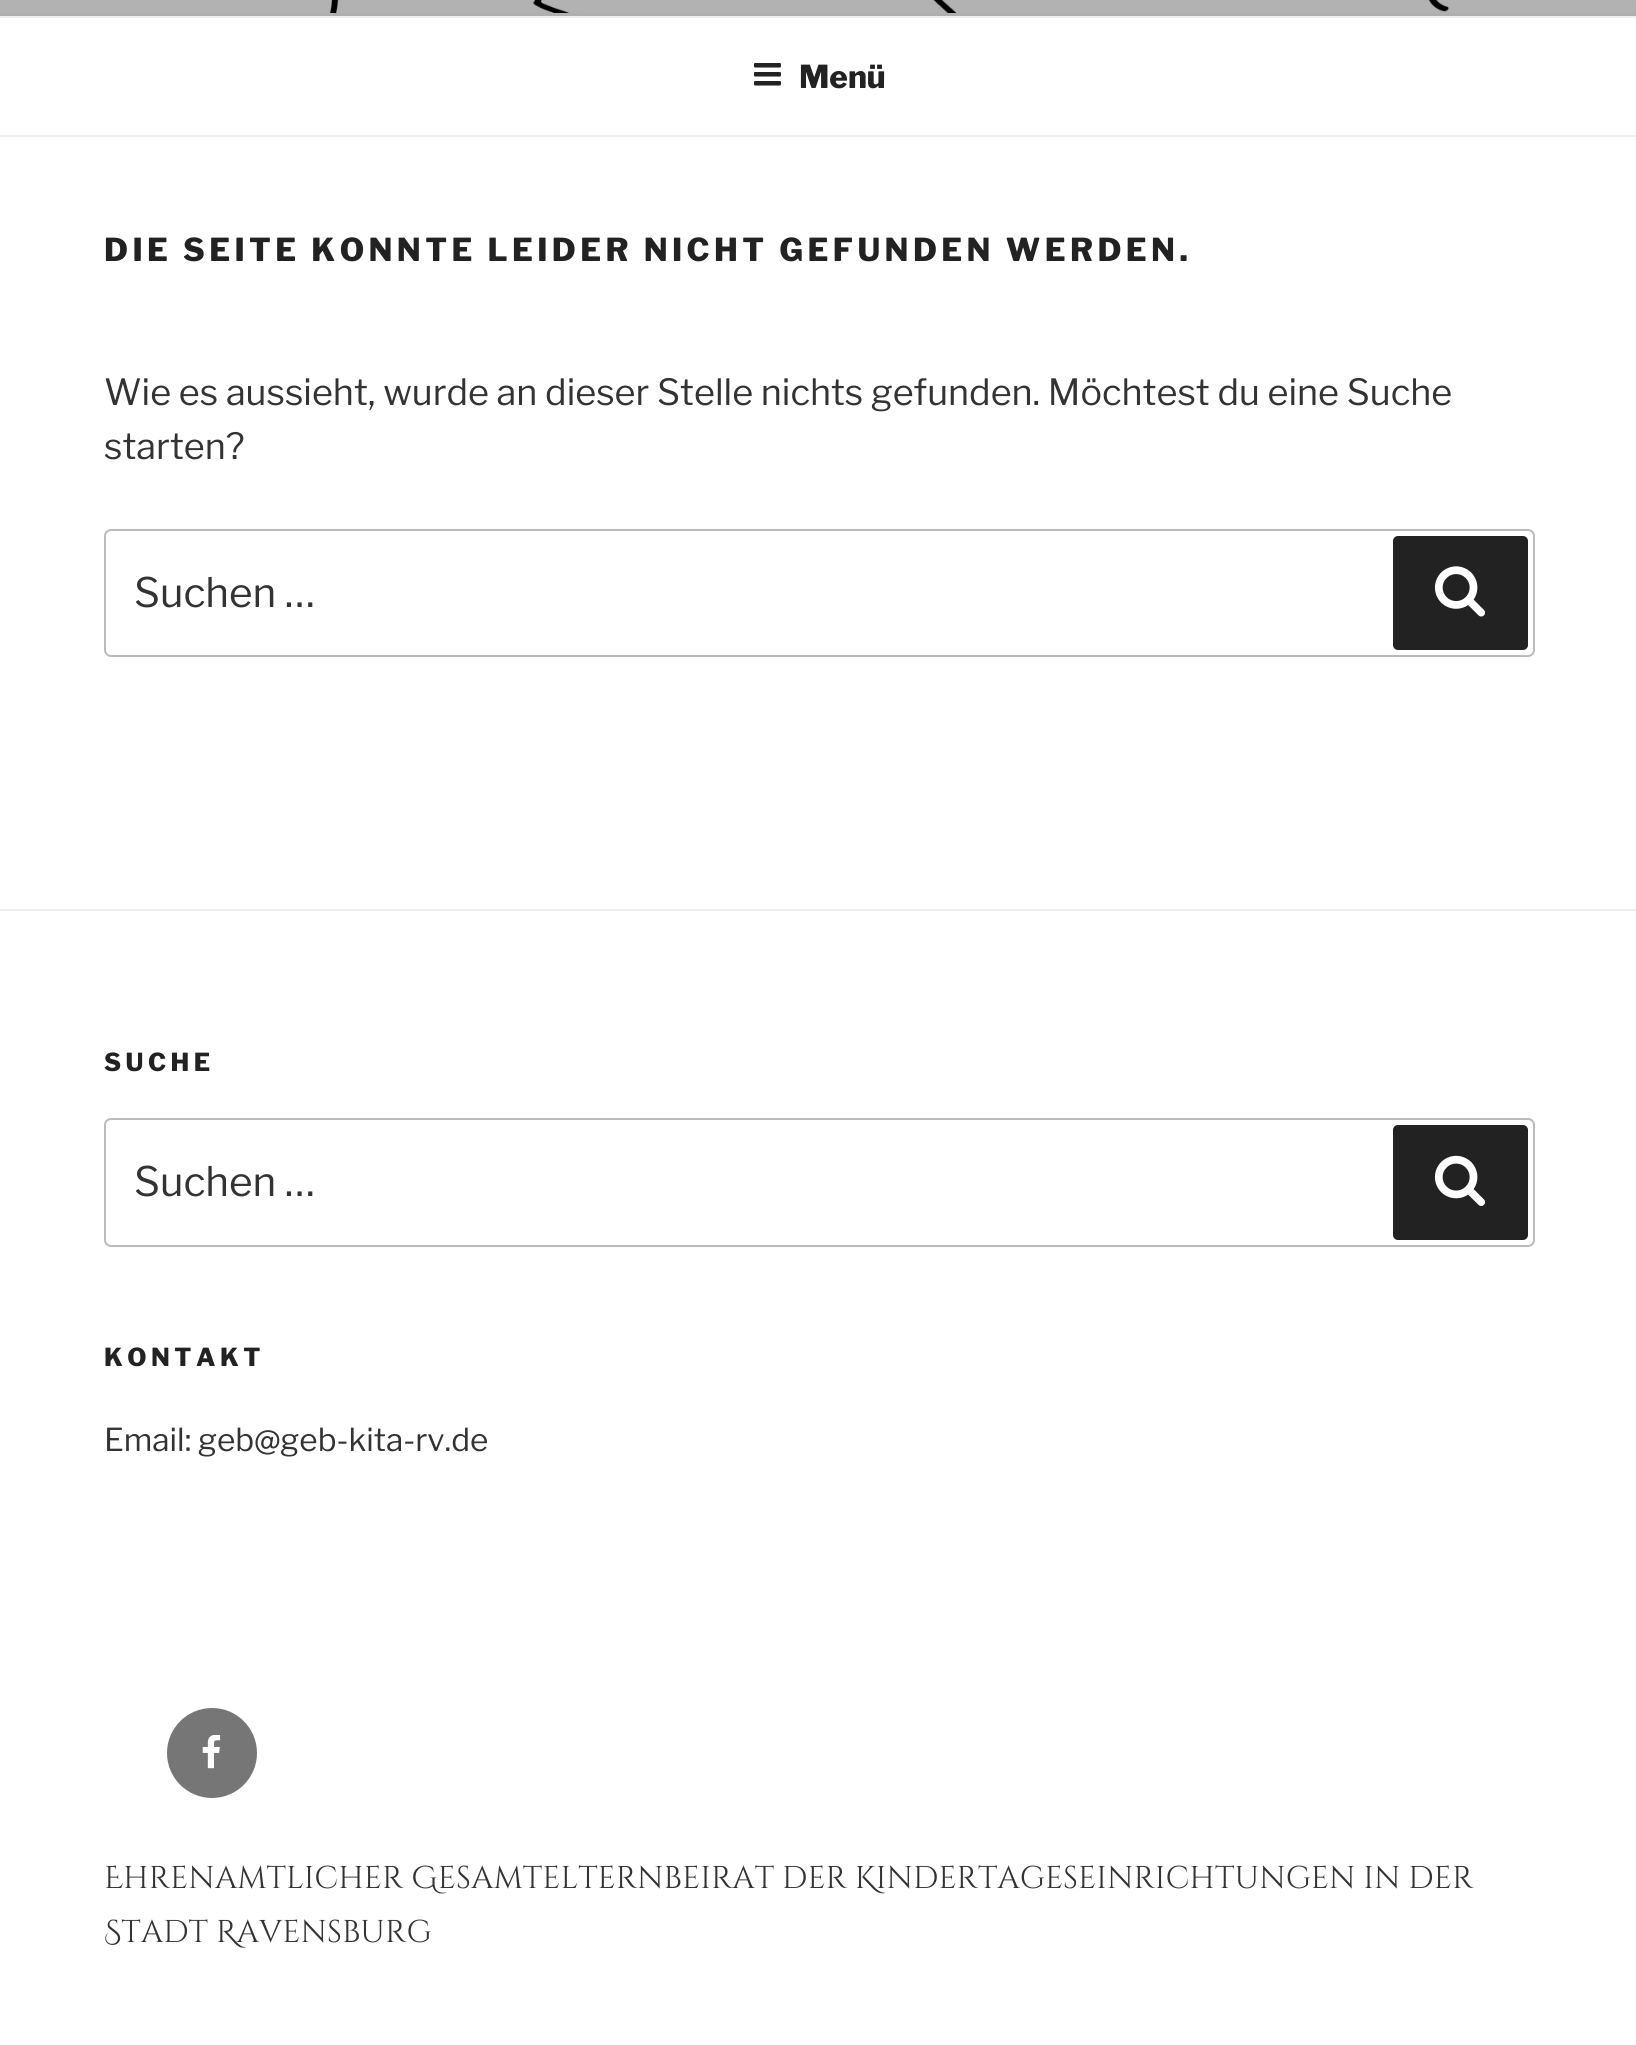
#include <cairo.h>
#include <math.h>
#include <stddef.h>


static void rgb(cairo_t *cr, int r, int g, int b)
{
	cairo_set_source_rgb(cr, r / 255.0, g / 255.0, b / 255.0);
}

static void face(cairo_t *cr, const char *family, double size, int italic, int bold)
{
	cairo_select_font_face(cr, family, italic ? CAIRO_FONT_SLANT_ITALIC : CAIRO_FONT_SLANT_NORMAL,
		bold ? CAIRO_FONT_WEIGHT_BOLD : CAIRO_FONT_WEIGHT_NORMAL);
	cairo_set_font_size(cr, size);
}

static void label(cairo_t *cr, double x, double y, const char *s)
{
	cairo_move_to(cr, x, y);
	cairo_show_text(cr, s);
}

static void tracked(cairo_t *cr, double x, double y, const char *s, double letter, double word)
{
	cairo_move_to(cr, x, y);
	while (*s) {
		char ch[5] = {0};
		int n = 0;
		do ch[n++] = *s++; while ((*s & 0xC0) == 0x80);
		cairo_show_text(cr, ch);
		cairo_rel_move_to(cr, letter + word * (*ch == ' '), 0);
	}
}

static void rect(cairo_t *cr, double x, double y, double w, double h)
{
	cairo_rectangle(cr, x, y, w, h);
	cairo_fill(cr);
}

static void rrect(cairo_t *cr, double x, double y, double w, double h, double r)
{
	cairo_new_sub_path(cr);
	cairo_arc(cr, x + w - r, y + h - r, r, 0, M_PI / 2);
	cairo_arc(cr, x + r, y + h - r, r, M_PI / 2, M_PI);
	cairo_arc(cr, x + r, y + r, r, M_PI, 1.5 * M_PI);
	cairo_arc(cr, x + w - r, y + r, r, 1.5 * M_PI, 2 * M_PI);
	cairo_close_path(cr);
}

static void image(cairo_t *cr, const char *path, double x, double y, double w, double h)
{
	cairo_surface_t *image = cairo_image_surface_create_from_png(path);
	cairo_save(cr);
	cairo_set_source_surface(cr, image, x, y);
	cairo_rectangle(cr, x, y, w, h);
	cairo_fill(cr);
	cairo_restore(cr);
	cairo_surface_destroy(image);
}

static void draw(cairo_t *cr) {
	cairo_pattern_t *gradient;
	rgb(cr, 255, 255, 255);
	cairo_paint(cr);
	rgb(cr, 250, 250, 250);
	rect(cr, 0, 13, 1636, 3);
	image(cr, "image0.png", 0, 0, 1636, 13);
	gradient = cairo_pattern_create_linear(819, -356, 819, 16);
	cairo_pattern_add_color_stop_rgba(gradient, 0, 0, 0, 0, 0);
	cairo_pattern_add_color_stop_rgba(gradient, 0.75, 0, 0, 0, 0.3);
	cairo_pattern_add_color_stop_rgba(gradient, 1, 0, 0, 0, 0.3);
	cairo_set_source(cr, gradient);
	cairo_pattern_destroy(gradient);
	rect(cr, 0, 0, 1636, 16);
	rgb(cr, 238, 238, 238);
	rect(cr, 0, 16, 1636, 2);
	rect(cr, 0, 135, 1636, 2);
	image(cr, "image1.png", 753, 63, 28, 23);
	face(cr, "Libre Franklin ExtraBold", 31.5, 0, 0);
	rgb(cr, 34, 34, 34);
	label(cr, 799, 88, "Menü");
	tracked(cr, 104, 261, "DIE SEITE KONNTE LEIDER NICHT GEFUNDEN WERDEN.", 4.4, 0);
	face(cr, "Libre Franklin", 36, 0, 0);
	rgb(cr, 51, 51, 51);
	label(cr, 104, 405, "Wie es aussieht, wurde an dieser Stelle nichts gefunden. Möchtest du eine Suche");
	label(cr, 104, 459, "starten?");
	rrect(cr, 105, 530, 1429, 126, 6);
	rgb(cr, 187, 187, 187);
	cairo_stroke(cr);
	face(cr, "Libre Franklin", 40.5, 0, 0);
	rgb(cr, 51, 51, 51);
	label(cr, 134, 607, "Suchen …");
	rgb(cr, 34, 34, 34);
	rrect(cr, 1393, 536, 135, 114, 5);
	cairo_fill(cr);
	image(cr, "image2.png", 1434, 566, 52, 51);
	rgb(cr, 238, 238, 238);
	rect(cr, 0, 909, 1636, 2);
	face(cr, "Libre Franklin ExtraBold", 24.75, 0, 0);
	rgb(cr, 34, 34, 34);
	tracked(cr, 104, 1071, "SUCHE", 4.5, 0);
	rrect(cr, 105, 1119, 1429, 127, 6);
	rgb(cr, 187, 187, 187);
	cairo_stroke(cr);
	face(cr, "Libre Franklin", 40.5, 0, 0);
	rgb(cr, 51, 51, 51);
	label(cr, 134, 1196, "Suchen …");
	rgb(cr, 34, 34, 34);
	rrect(cr, 1393, 1125, 135, 115, 5);
	cairo_fill(cr);
	image(cr, "image3.png", 1434, 1155, 52, 51);
	face(cr, "Libre Franklin ExtraBold", 24.75, 0, 0);
	tracked(cr, 104, 1366, "KONTAKT", 4.5, 0);
	face(cr, "Libre Franklin", 31.5, 0, 0);
	rgb(cr, 51, 51, 51);
	label(cr, 104, 1451, "Email: geb@geb-kita-rv.de");
	rgb(cr, 118, 118, 118);
	cairo_new_path(cr);
	cairo_arc(cr, 212, 1753, 45, 0, 2 * M_PI);
	cairo_fill(cr);
	image(cr, "image4.png", 202, 1735, 19, 34);
	face(cr, "Cinzel Decorative", 31.5, 0, 0);
	rgb(cr, 51, 51, 51);
	label(cr, 104, 1888, "Ehrenamtlicher Gesamtelternbeirat der Kindertageseinrichtungen in der");
	label(cr, 104, 1942, "Stadt Ravensburg");
}

int main(void) {
	cairo_surface_t *surface = cairo_image_surface_create(CAIRO_FORMAT_RGB24, 1636, 2045);
	cairo_t *cr = cairo_create(surface);
	cairo_font_options_t *options = cairo_font_options_create();
	cairo_font_options_set_hint_metrics(options, CAIRO_HINT_METRICS_OFF);
	cairo_font_options_set_hint_style(options, CAIRO_HINT_STYLE_NONE);
	cairo_set_font_options(cr, options);
	cairo_set_miter_limit(cr, 4);
	draw(cr);
	cairo_surface_write_to_png(surface, "render.png");
	cairo_font_options_destroy(options);
	cairo_destroy(cr);
	cairo_surface_destroy(surface);
	return 0;
}
